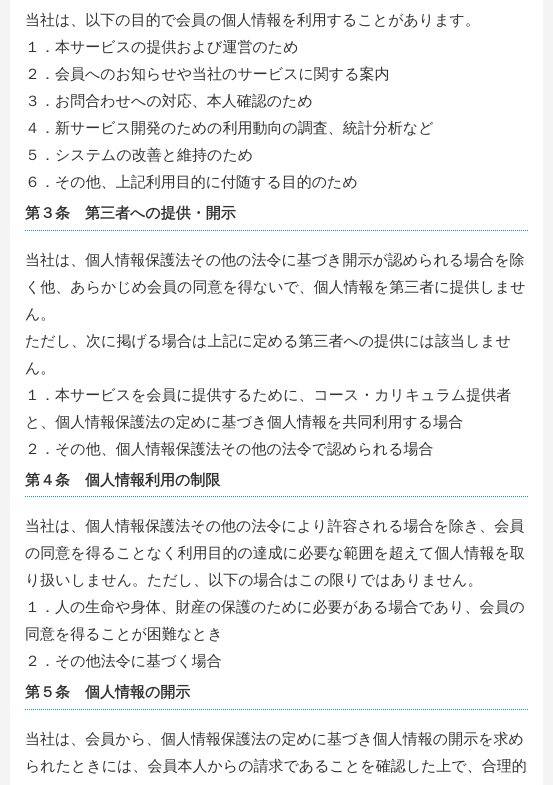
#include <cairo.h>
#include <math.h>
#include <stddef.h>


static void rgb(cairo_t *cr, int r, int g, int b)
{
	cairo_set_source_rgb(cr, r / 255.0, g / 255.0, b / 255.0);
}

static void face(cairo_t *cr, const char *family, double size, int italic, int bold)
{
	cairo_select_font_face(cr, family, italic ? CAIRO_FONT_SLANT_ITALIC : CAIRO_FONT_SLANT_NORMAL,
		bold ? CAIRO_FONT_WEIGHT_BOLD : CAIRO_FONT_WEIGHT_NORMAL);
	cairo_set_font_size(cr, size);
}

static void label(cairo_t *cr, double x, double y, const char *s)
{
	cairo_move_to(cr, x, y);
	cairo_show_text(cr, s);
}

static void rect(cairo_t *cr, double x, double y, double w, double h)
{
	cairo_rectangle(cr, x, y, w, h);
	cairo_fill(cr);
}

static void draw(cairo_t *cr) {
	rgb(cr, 244, 244, 244);
	cairo_paint(cr);
	rgb(cr, 255, 255, 255);
	rect(cr, 10, 0, 533, 785);
	face(cr, "WenQuanYi Zen Hei Medium", 15, 0, 0);
	rgb(cr, 51, 51, 51);
	label(cr, 25, 25, "当社は、以下の目的で会員の個人情報を利用することがあります。");
	label(cr, 25, 52, "１．本サービスの提供および運営のため");
	label(cr, 25, 79, "２．会員へのお知らせや当社のサービスに関する案内");
	label(cr, 25, 106, "３．お問合わせへの対応、本人確認のため");
	label(cr, 25, 133, "４．新サービス開発のための利用動向の調査、統計分析など");
	label(cr, 25, 160, "５．システムの改善と維持のため");
	label(cr, 25, 187, "６．その他、上記利用目的に付随する目的のため");
	cairo_new_path(cr);
	cairo_move_to(cr, 25, 230.5);
	cairo_line_to(cr, 528, 230.5);
	rgb(cr, 9, 150, 255);
	cairo_set_line_width(cr, 1);
	cairo_set_dash(cr, (double[]){1, 1}, 2, 0);
	cairo_stroke(cr);
	face(cr, "WenQuanYi Zen Hei", 15, 0, 1);
	rgb(cr, 51, 51, 51);
	label(cr, 25, 218, "第３条　第三者への提供・開示");
	face(cr, "WenQuanYi Zen Hei Medium", 15, 0, 0);
	label(cr, 25, 265, "当社は、個人情報保護法その他の法令に基づき開示が認められる場合を除");
	label(cr, 25, 292, "く他、あらかじめ会員の同意を得ないで、個人情報を第三者に提供しませ");
	label(cr, 25, 319, "ん。");
	label(cr, 25, 346, "ただし、次に掲げる場合は上記に定める第三者への提供には該当しませ");
	label(cr, 25, 373, "ん。");
	label(cr, 25, 400, "１．本サービスを会員に提供するために、コース・カリキュラム提供者");
	label(cr, 25, 427, "と、個人情報保護法の定めに基づき個人情報を共同利用する場合");
	label(cr, 25, 454, "２．その他、個人情報保護法その他の法令で認められる場合");
	cairo_new_path(cr);
	cairo_move_to(cr, 25, 496.5);
	cairo_line_to(cr, 528, 496.5);
	rgb(cr, 9, 150, 255);
	cairo_stroke(cr);
	face(cr, "WenQuanYi Zen Hei", 15, 0, 1);
	rgb(cr, 51, 51, 51);
	label(cr, 25, 485, "第４条　個人情報利用の制限");
	face(cr, "WenQuanYi Zen Hei Medium", 15, 0, 0);
	label(cr, 25, 531, "当社は、個人情報保護法その他の法令により許容される場合を除き、会員");
	label(cr, 25, 558, "の同意を得ることなく利用目的の達成に必要な範囲を超えて個人情報を取");
	label(cr, 25, 585, "り扱いしません。ただし、以下の場合はこの限りではありません。");
	label(cr, 25, 612, "１．人の生命や身体、財産の保護のために必要がある場合であり、会員の");
	label(cr, 25, 639, "同意を得ることが困難なとき");
	label(cr, 25, 666, "２．その他法令に基づく場合");
	cairo_new_path(cr);
	cairo_move_to(cr, 25, 709.5);
	cairo_line_to(cr, 528, 709.5);
	rgb(cr, 9, 150, 255);
	cairo_stroke(cr);
	face(cr, "WenQuanYi Zen Hei", 15, 0, 1);
	rgb(cr, 51, 51, 51);
	label(cr, 25, 697, "第５条　個人情報の開示");
	face(cr, "WenQuanYi Zen Hei Medium", 15, 0, 0);
	label(cr, 25, 744, "当社は、会員から、個人情報保護法の定めに基づき個人情報の開示を求め");
	label(cr, 25, 771, "られたときには、会員本人からの請求であることを確認した上で、合理的");
}

int main(void) {
	cairo_surface_t *surface = cairo_image_surface_create(CAIRO_FORMAT_RGB24, 553, 785);
	cairo_t *cr = cairo_create(surface);
	cairo_font_options_t *options = cairo_font_options_create();
	cairo_font_options_set_hint_metrics(options, CAIRO_HINT_METRICS_OFF);
	cairo_font_options_set_hint_style(options, CAIRO_HINT_STYLE_NONE);
	cairo_set_font_options(cr, options);
	cairo_set_miter_limit(cr, 4);
	draw(cr);
	cairo_surface_write_to_png(surface, "render.png");
	cairo_font_options_destroy(options);
	cairo_destroy(cr);
	cairo_surface_destroy(surface);
	return 0;
}
